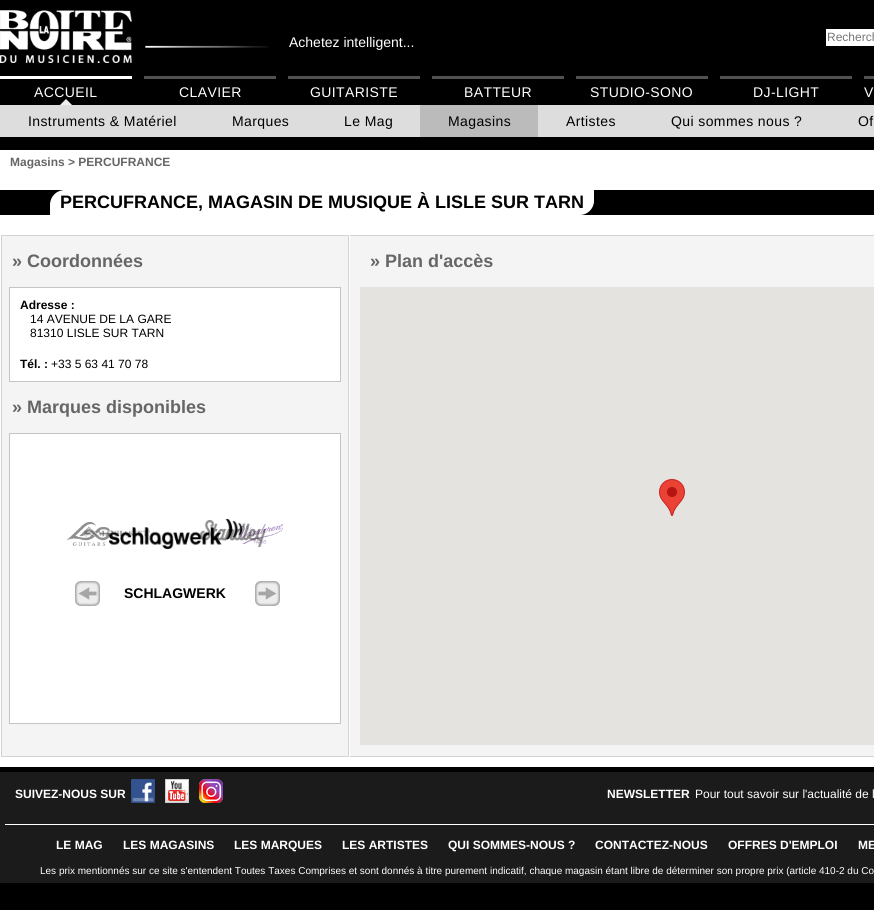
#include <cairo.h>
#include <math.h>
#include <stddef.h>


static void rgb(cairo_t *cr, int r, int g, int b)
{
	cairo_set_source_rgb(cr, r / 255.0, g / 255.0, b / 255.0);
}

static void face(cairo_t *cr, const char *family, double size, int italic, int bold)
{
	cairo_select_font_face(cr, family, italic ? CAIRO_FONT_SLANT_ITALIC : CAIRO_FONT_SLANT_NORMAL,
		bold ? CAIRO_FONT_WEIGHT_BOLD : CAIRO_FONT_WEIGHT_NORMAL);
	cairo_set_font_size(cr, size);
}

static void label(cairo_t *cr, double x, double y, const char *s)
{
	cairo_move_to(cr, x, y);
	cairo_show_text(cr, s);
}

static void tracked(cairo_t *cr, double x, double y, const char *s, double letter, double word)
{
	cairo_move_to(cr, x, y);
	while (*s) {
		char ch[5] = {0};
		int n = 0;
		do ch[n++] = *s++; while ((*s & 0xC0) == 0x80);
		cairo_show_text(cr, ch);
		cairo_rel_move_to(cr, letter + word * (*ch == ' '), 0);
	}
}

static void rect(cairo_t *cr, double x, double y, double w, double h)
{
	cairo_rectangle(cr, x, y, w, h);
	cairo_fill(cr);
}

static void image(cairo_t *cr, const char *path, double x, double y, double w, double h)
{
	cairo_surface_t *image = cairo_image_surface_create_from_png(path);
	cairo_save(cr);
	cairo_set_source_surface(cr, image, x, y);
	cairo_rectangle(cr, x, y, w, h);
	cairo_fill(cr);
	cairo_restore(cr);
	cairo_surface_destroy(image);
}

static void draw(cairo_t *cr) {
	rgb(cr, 0, 0, 0);
	cairo_paint(cr);
	image(cr, "image0.png", 145, 45, 124, 3);
	image(cr, "image1.png", 0, 10, 132, 53);
	face(cr, "Liberation Sans", 14, 0, 0);
	rgb(cr, 255, 255, 255);
	label(cr, 289, 47, "Achetez intelligent...");
	rect(cr, 826, 29, 48, 17);
	face(cr, "Liberation Sans", 12, 0, 0);
	rgb(cr, 117, 117, 117);
	label(cr, 827, 41, "Recherch");
	rgb(cr, 255, 255, 255);
	rect(cr, 0, 76, 132, 3);
	face(cr, "Liberation Sans", 14, 0, 0);
	tracked(cr, 34, 97, "ACCUEIL", 0.4, 0);
	rgb(cr, 238, 238, 238);
	cairo_new_path(cr);
	cairo_move_to(cr, 72, 105);
	cairo_line_to(cr, 60, 105);
	cairo_line_to(cr, 66, 99);
	cairo_close_path(cr);
	cairo_fill(cr);
	rgb(cr, 221, 221, 221);
	rect(cr, 0, 105, 874, 32);
	rgb(cr, 0, 0, 0);
	tracked(cr, 28, 126, "Instruments & Matériel", 0.4, 0);
	tracked(cr, 232, 126, "Marques", 0.4, 0);
	tracked(cr, 344, 126, "Le Mag", 0.4, 0);
	rgb(cr, 187, 187, 187);
	rect(cr, 420, 105, 118, 32);
	rgb(cr, 0, 0, 0);
	tracked(cr, 448, 126, "Magasins", 0.4, 0);
	tracked(cr, 566, 126, "Artistes", 0.4, 0);
	tracked(cr, 671, 126, "Qui sommes nous ?", 0.4, 0);
	tracked(cr, 858, 126, "Of", 0.4, 0);
	rgb(cr, 81, 81, 82);
	rect(cr, 144, 76, 132, 3);
	rgb(cr, 255, 255, 255);
	tracked(cr, 179, 97, "CLAVIER", 0.4, 0);
	rgb(cr, 81, 81, 82);
	rect(cr, 288, 76, 132, 3);
	rgb(cr, 255, 255, 255);
	tracked(cr, 310, 97, "GUITARISTE", 0.4, 0);
	rgb(cr, 81, 81, 82);
	rect(cr, 432, 76, 132, 3);
	rgb(cr, 255, 255, 255);
	tracked(cr, 464, 97, "BATTEUR", 0.4, 0);
	rgb(cr, 81, 81, 82);
	rect(cr, 576, 76, 132, 3);
	rgb(cr, 255, 255, 255);
	tracked(cr, 590, 97, "STUDIO-SONO", 0.4, 0);
	rgb(cr, 81, 81, 82);
	rect(cr, 720, 76, 132, 3);
	rgb(cr, 255, 255, 255);
	tracked(cr, 753, 97, "DJ-LIGHT", 0.4, 0);
	rgb(cr, 81, 81, 82);
	rect(cr, 864, 76, 10, 3);
	rgb(cr, 255, 255, 255);
	tracked(cr, 864, 97, "V", 0.4, 0);
	rect(cr, 0, 150, 874, 617);
	face(cr, "Liberation Sans", 12, 0, 1);
	rgb(cr, 102, 102, 102);
	label(cr, 10, 166, "Magasins > PERCUFRANCE");
	rgb(cr, 0, 0, 0);
	rect(cr, 0, 190, 874, 25);
	rgb(cr, 255, 255, 255);
	cairo_new_path(cr);
	cairo_move_to(cr, 65, 190);
	cairo_line_to(cr, 594, 190);
	cairo_line_to(cr, 594, 201);
	cairo_curve_to(cr, 594, 208.5, 587.5, 215, 580, 215);
	cairo_line_to(cr, 50, 215);
	cairo_line_to(cr, 50, 205);
	cairo_curve_to(cr, 50, 196.5, 56.5, 190, 65, 190);
	cairo_close_path(cr);
	cairo_fill(cr);
	face(cr, "Liberation Sans", 18, 0, 1);
	rgb(cr, 0, 0, 0);
	label(cr, 60, 208, "PERCUFRANCE, MAGASIN DE MUSIQUE À LISLE SUR TARN");
	rgb(cr, 244, 244, 244);
	cairo_rectangle(cr, 1.5, 235.5, 347, 521);
	cairo_fill_preserve(cr);
	rgb(cr, 211, 211, 211);
	cairo_set_line_width(cr, 1);
	cairo_stroke(cr);
	rgb(cr, 102, 102, 102);
	label(cr, 12, 267, "» Coordonnées");
	rgb(cr, 255, 255, 255);
	cairo_rectangle(cr, 9.5, 287.5, 331, 94);
	cairo_fill_preserve(cr);
	rgb(cr, 196, 196, 196);
	cairo_stroke(cr);
	face(cr, "Liberation Sans", 12, 0, 1);
	rgb(cr, 0, 0, 0);
	label(cr, 20, 309, "Adresse :");
	face(cr, "Liberation Sans", 12, 0, 0);
	label(cr, 30, 323, "14 AVENUE DE LA GARE");
	label(cr, 30, 337, "81310 LISLE SUR TARN");
	face(cr, "Liberation Sans", 12, 0, 1);
	label(cr, 20, 368, "Tél. :");
	face(cr, "Liberation Sans", 12, 0, 0);
	label(cr, 51, 368, "+33 5 63 41 70 78");
	face(cr, "Liberation Sans", 18, 0, 1);
	rgb(cr, 102, 102, 102);
	label(cr, 12, 413, "» Marques disponibles");
	rgb(cr, 255, 255, 255);
	cairo_rectangle(cr, 9.5, 433.5, 331, 290);
	cairo_fill_preserve(cr);
	rgb(cr, 196, 196, 196);
	cairo_stroke(cr);
	image(cr, "image3.png", 67, 522, 45, 24);
	image(cr, "image6.png", 238, 524, 45, 20);
	image(cr, "image4.png", 200, 520, 66, 27);
	image(cr, "image5.png", 84, 530, 66, 7);
	image(cr, "image2.png", 109, 519, 133, 30);
	image(cr, "image7.png", 75, 581, 25, 25);
	image(cr, "image8.png", 255, 581, 25, 25);
	face(cr, "Liberation Sans", 14, 0, 1);
	rgb(cr, 0, 0, 0);
	label(cr, 124, 598, "SCHLAGWERK");
	rgb(cr, 244, 244, 244);
	rect(cr, 350, 236, 524, 520);
	rgb(cr, 211, 211, 211);
	rect(cr, 350, 235, 524, 1);
	rect(cr, 350, 756, 524, 1);
	face(cr, "Liberation Sans", 18, 0, 1);
	rgb(cr, 102, 102, 102);
	label(cr, 370, 267, "» Plan d'accès");
	rgb(cr, 229, 227, 223);
	rect(cr, 360, 287, 514, 458);
	image(cr, "image9.png", 659, 479, 26, 37);
	rgb(cr, 27, 27, 27);
	rect(cr, 0, 772, 874, 111);
	face(cr, "Liberation Sans", 12, 0, 1);
	rgb(cr, 255, 255, 255);
	label(cr, 15, 798, "SUIVEZ-NOUS SUR");
	image(cr, "image10.png", 131, 779, 24, 24);
	image(cr, "image11.png", 165, 779, 24, 24);
	image(cr, "image12.png", 199, 779, 24, 24);
	label(cr, 607, 798, "NEWSLETTER");
	face(cr, "Liberation Sans", 12, 0, 0);
	label(cr, 695, 798, "Pour tout savoir sur l'actualité de l");
	rect(cr, 5, 824, 869, 1);
	face(cr, "Liberation Sans", 12, 0, 1);
	label(cr, 56, 849, "LE MAG");
	label(cr, 123, 849, "LES MAGASINS");
	label(cr, 234, 849, "LES MARQUES");
	label(cr, 342, 849, "LES ARTISTES");
	label(cr, 448, 849, "QUI SOMMES-NOUS ?");
	label(cr, 595, 849, "CONTACTEZ-NOUS");
	label(cr, 728, 849, "OFFRES D'EMPLOI");
	label(cr, 858, 849, "ME");
	face(cr, "Liberation Sans", 10, 0, 0);
	label(cr, 40, 874, "Les prix mentionnés sur ce site s'entendent Toutes Taxes Comprises et sont donnés à titre purement indicatif, chaque magasin étant libre de déterminer son propre prix (article 410-2 du Co");
}

int main(void) {
	cairo_surface_t *surface = cairo_image_surface_create(CAIRO_FORMAT_RGB24, 874, 910);
	cairo_t *cr = cairo_create(surface);
	cairo_font_options_t *options = cairo_font_options_create();
	cairo_font_options_set_hint_metrics(options, CAIRO_HINT_METRICS_OFF);
	cairo_font_options_set_hint_style(options, CAIRO_HINT_STYLE_NONE);
	cairo_set_font_options(cr, options);
	cairo_set_miter_limit(cr, 4);
	draw(cr);
	cairo_surface_write_to_png(surface, "render.png");
	cairo_font_options_destroy(options);
	cairo_destroy(cr);
	cairo_surface_destroy(surface);
	return 0;
}
